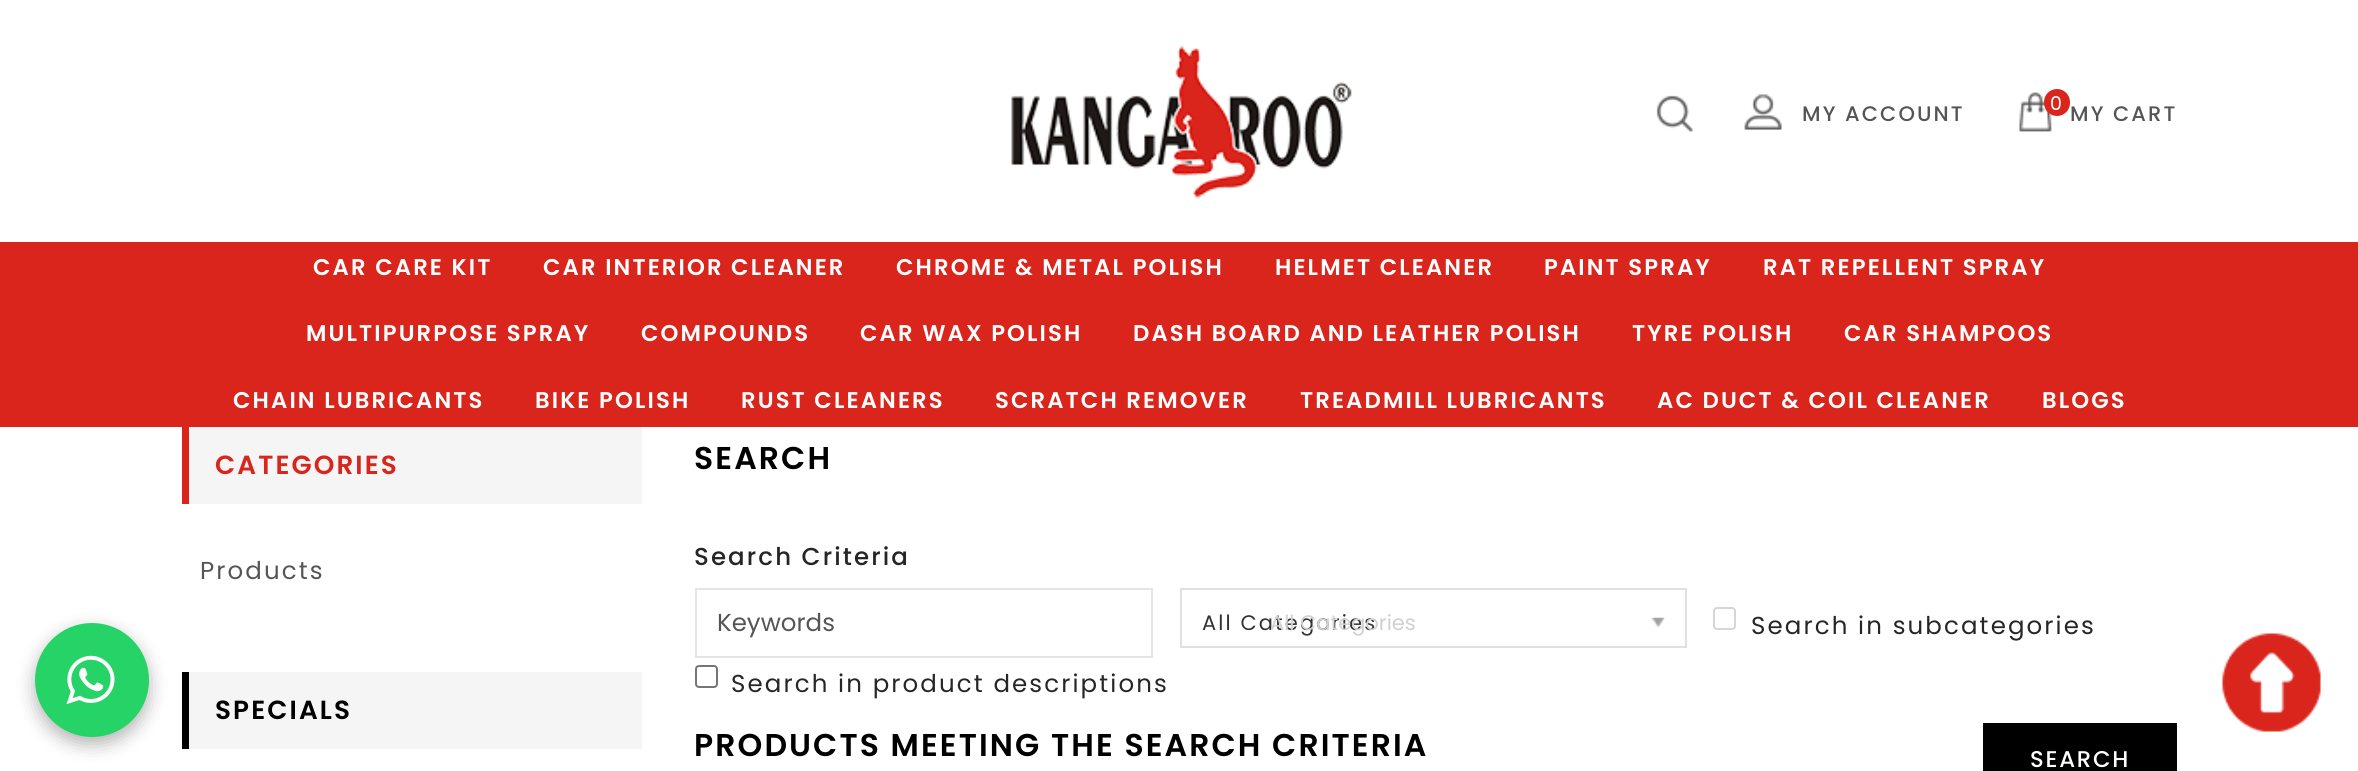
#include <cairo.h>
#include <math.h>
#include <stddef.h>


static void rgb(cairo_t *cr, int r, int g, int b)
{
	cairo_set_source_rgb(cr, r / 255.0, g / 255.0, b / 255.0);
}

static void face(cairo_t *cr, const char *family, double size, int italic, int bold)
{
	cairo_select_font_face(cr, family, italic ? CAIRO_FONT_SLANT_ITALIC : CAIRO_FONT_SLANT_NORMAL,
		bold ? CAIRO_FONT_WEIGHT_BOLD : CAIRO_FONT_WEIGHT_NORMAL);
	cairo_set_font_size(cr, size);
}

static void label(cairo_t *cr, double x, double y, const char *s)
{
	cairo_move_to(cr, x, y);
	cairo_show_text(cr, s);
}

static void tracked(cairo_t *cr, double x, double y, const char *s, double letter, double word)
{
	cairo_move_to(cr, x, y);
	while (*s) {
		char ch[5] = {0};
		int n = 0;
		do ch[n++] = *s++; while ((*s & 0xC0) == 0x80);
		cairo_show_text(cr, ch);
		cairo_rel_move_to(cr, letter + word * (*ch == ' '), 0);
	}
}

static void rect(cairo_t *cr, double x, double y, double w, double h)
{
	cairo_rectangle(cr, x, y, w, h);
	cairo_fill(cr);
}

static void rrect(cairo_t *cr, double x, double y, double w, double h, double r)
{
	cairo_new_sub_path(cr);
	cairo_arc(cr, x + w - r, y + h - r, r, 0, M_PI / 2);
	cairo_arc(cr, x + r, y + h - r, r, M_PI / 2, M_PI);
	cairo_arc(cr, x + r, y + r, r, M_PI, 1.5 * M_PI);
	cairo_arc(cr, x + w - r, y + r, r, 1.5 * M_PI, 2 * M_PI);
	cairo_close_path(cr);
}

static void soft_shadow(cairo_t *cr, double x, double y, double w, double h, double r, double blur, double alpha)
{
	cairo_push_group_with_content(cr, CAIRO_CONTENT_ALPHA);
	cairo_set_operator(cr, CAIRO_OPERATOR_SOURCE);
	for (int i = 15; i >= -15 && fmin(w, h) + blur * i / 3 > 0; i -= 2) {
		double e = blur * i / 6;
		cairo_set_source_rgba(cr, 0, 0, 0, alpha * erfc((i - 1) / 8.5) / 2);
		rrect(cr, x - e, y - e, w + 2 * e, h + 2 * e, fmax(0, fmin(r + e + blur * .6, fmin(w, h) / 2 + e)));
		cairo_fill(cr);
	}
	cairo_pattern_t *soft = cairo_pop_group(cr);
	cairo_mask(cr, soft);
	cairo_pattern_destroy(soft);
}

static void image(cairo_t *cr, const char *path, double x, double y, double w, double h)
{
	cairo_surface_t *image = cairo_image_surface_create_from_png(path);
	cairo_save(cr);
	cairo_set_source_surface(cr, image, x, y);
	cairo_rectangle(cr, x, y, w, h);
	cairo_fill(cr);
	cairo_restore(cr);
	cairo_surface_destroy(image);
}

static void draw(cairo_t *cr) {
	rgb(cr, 255, 255, 255);
	cairo_paint(cr);
	image(cr, "image0.png", 1011, 45, 341, 154);
	image(cr, "image1.png", 1656, 95, 37, 37);
	image(cr, "image2.png", 1744, 94, 38, 36);
	face(cr, "Poppins Medium", 21, 0, 0);
	rgb(cr, 85, 85, 85);
	tracked(cr, 1802, 121, "MY ACCOUNT", 2.1, 0);
	image(cr, "image3.png", 2018, 92, 35, 40);
	rgb(cr, 218, 37, 28);
	rrect(cr, 2044, 89, 26, 27, 13);
	cairo_fill(cr);
	face(cr, "Poppins", 19, 0, 0);
	rgb(cr, 255, 255, 255);
	tracked(cr, 2050, 110, "0", 1.75, 0);
	face(cr, "Poppins Medium", 21, 0, 0);
	rgb(cr, 85, 85, 85);
	tracked(cr, 2070, 121, "MY CART", 2.1, 0);
	rgb(cr, 218, 37, 28);
	rect(cr, 0, 242, 2358, 185);
	face(cr, "Poppins SemiBold", 22.75, 0, 0);
	rgb(cr, 255, 255, 255);
	tracked(cr, 313, 275, "CAR CARE KIT", 2.1, 0);
	tracked(cr, 543, 275, "CAR INTERIOR CLEANER", 2.1, 0);
	tracked(cr, 896, 275, "CHROME & METAL POLISH", 2.1, 0);
	tracked(cr, 1275, 275, "HELMET CLEANER", 2.1, 0);
	tracked(cr, 1544, 275, "PAINT SPRAY", 2.1, 0);
	tracked(cr, 1763, 275, "RAT REPELLENT SPRAY", 2.1, 0);
	tracked(cr, 306, 341, "MULTIPURPOSE SPRAY", 2.1, 0);
	tracked(cr, 641, 341, "COMPOUNDS", 2.1, 0);
	tracked(cr, 860, 341, "CAR WAX POLISH", 2.1, 0);
	tracked(cr, 1133, 341, "DASH BOARD AND LEATHER POLISH", 2.1, 0);
	tracked(cr, 1632, 341, "TYRE POLISH", 2.1, 0);
	tracked(cr, 1844, 341, "CAR SHAMPOOS", 2.1, 0);
	tracked(cr, 233, 408, "CHAIN LUBRICANTS", 2.1, 0);
	tracked(cr, 535, 408, "BIKE POLISH", 2.1, 0);
	tracked(cr, 741, 408, "RUST CLEANERS", 2.1, 0);
	tracked(cr, 995, 408, "SCRATCH REMOVER", 2.1, 0);
	tracked(cr, 1300, 408, "TREADMILL LUBRICANTS", 2.1, 0);
	tracked(cr, 1657, 408, "AC DUCT & COIL CLEANER", 2.1, 0);
	tracked(cr, 2042, 408, "BLOGS", 2.1, 0);
	rgb(cr, 0, 0, 0);
	soft_shadow(cr, 35, 630, 114, 114, 57, 9, 0.3);
	rgb(cr, 37, 211, 102);
	cairo_arc(cr, 92, 680, 57, 0, 2 * M_PI);
	cairo_fill(cr);
	image(cr, "image4.png", 66, 655, 49, 50);
	rgb(cr, 245, 245, 245);
	rect(cr, 189, 427, 453, 77);
	rgb(cr, 218, 37, 28);
	rect(cr, 182, 427, 7, 77);
	face(cr, "Poppins SemiBold", 26.25, 0, 0);
	tracked(cr, 215, 474, "CATEGORIES", 2.1, 0);
	face(cr, "Poppins", 24.5, 0, 0);
	rgb(cr, 85, 85, 85);
	tracked(cr, 200, 579, "Products", 2.1, 0);
	rgb(cr, 245, 245, 245);
	rect(cr, 189, 672, 453, 77);
	rgb(cr, 0, 0, 0);
	rect(cr, 182, 672, 7, 77);
	face(cr, "Poppins SemiBold", 26.25, 0, 0);
	tracked(cr, 215, 719, "SPECIALS", 2.1, 0);
	face(cr, "Poppins SemiBold", 31.5, 0, 0);
	tracked(cr, 694, 469, "SEARCH", 2.1, 0);
	face(cr, "Poppins Medium", 24.5, 0, 0);
	rgb(cr, 38, 38, 38);
	tracked(cr, 694, 565, "Search Criteria", 2.1, 0);
	cairo_rectangle(cr, 696, 589, 456, 68);
	rgb(cr, 229, 229, 229);
	cairo_stroke(cr);
	face(cr, "Poppins", 24.5, 0, 0);
	rgb(cr, 85, 85, 85);
	label(cr, 717, 631, "Keywords");
	cairo_rectangle(cr, 1181, 589, 505, 58);
	rgb(cr, 224, 224, 224);
	cairo_stroke(cr);
	image(cr, "image5.png", 1652, 617, 13, 11);
	face(cr, "Poppins", 21, 0, 0);
	rgb(cr, 51, 51, 51);
	tracked(cr, 1202, 630, "All Categories", 2.1, 0);
	rgb(cr, 209, 209, 209);
	label(cr, 1270, 630, "All Categories");
	rrect(cr, 1714, 608, 21, 21, 3);
	rgb(cr, 214, 214, 214);
	cairo_stroke(cr);
	face(cr, "Poppins", 24.5, 0, 0);
	rgb(cr, 38, 38, 38);
	tracked(cr, 1751, 634, "Search in subcategories", 2.1, 0);
	rrect(cr, 696, 666, 21, 21, 3);
	rgb(cr, 118, 118, 118);
	cairo_stroke(cr);
	rgb(cr, 38, 38, 38);
	tracked(cr, 731, 692, "Search in product descriptions", 2.1, 0);
	face(cr, "Poppins SemiBold", 31.5, 0, 0);
	rgb(cr, 0, 0, 0);
	tracked(cr, 694, 756, "PRODUCTS MEETING THE SEARCH CRITERIA", 2.1, 0);
	rect(cr, 1983, 723, 194, 48);
	face(cr, "Poppins Medium", 22.75, 0, 0);
	rgb(cr, 255, 255, 255);
	tracked(cr, 2030, 767, "SEARCH", 1.75, 0);
	image(cr, "image6.png", 2222, 633, 99, 99);
}

int main(void) {
	cairo_surface_t *surface = cairo_image_surface_create(CAIRO_FORMAT_RGB24, 2358, 771);
	cairo_t *cr = cairo_create(surface);
	cairo_font_options_t *options = cairo_font_options_create();
	cairo_font_options_set_hint_metrics(options, CAIRO_HINT_METRICS_OFF);
	cairo_font_options_set_hint_style(options, CAIRO_HINT_STYLE_NONE);
	cairo_set_font_options(cr, options);
	cairo_set_miter_limit(cr, 4);
	draw(cr);
	cairo_surface_write_to_png(surface, "render.png");
	cairo_font_options_destroy(options);
	cairo_destroy(cr);
	cairo_surface_destroy(surface);
	return 0;
}
